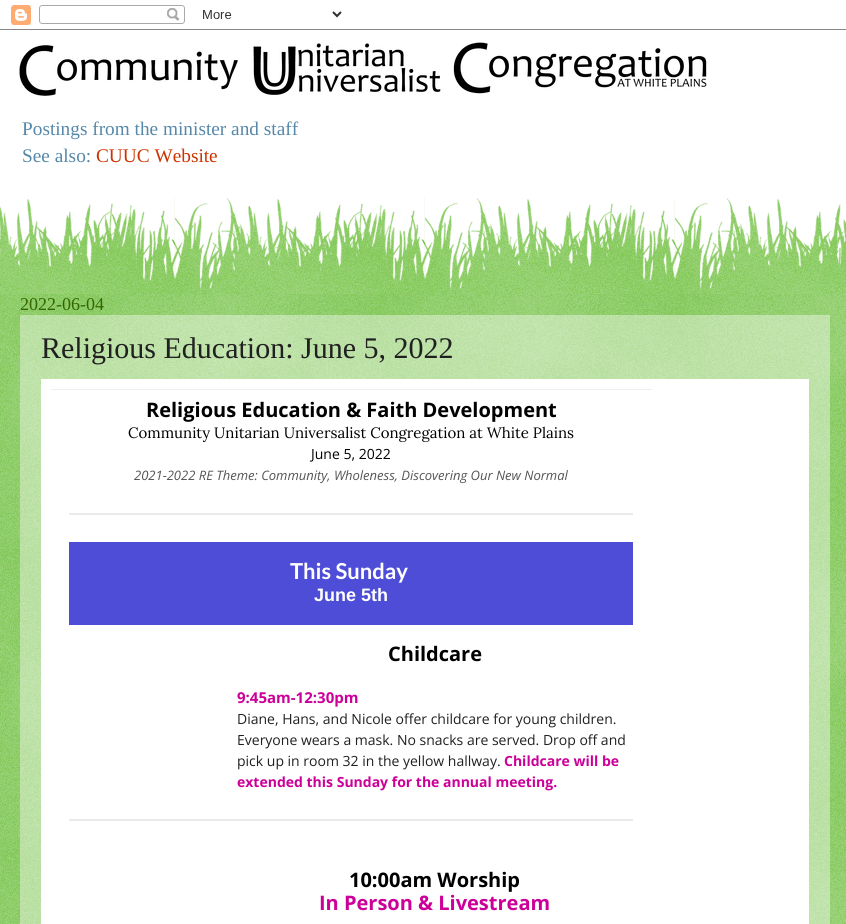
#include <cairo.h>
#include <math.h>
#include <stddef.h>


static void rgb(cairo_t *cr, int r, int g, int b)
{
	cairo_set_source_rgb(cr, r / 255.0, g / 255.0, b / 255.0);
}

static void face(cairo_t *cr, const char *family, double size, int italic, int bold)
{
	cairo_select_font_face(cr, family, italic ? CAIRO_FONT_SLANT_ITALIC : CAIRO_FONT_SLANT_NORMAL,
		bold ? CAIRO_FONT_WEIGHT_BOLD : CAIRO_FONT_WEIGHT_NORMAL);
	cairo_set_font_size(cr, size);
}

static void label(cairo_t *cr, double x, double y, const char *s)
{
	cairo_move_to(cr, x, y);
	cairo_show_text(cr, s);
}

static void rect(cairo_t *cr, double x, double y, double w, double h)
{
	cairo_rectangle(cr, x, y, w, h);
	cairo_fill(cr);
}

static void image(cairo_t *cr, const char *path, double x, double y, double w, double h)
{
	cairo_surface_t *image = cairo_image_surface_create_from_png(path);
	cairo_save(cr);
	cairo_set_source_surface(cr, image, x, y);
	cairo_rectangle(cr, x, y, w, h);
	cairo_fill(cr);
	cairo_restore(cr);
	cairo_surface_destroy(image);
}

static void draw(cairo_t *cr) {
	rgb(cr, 255, 255, 255);
	cairo_paint(cr);
	image(cr, "image0.png", 0, 5, 846, 25);
	image(cr, "image1.png", 19, 42, 688, 54);
	face(cr, "Liberation Serif", 19.3, 0, 0);
	rgb(cr, 85, 136, 170);
	label(cr, 22, 135, "Postings from the minister and staff");
	label(cr, 22, 162, "See also:");
	rgb(cr, 204, 51, 0);
	label(cr, 96, 162, "CUUC Website");
	rgb(cr, 102, 187, 51);
	rect(cr, 0, 294, 846, 630);
	rgb(cr, 163, 214, 133);
	rect(cr, 20, 315, 810, 609);
	image(cr, "image2.png", 0, 294, 846, 630);
	image(cr, "image4.png", 820, 223, 26, 48);
	image(cr, "image3.png", 0, 198, 846, 96);
	face(cr, "Liberation Serif", 18, 0, 0);
	rgb(cr, 51, 102, 0);
	label(cr, 20, 310, "2022-06-04");
	face(cr, "Liberation Serif", 30, 0, 0);
	rgb(cr, 32, 32, 32);
	label(cr, 41, 358, "Religious Education: June 5, 2022");
	rgb(cr, 255, 255, 255);
	rect(cr, 41, 379, 768, 545);
	rgb(cr, 238, 238, 238);
	rect(cr, 51, 389, 601, 1);
	face(cr, "Open Sans", 20, 0, 1);
	rgb(cr, 0, 0, 0);
	label(cr, 146, 417, "Religious Education & Faith Development");
	face(cr, "Lora", 15, 0, 0);
	label(cr, 128, 438, "Community Unitarian Universalist Congregation at White Plains");
	face(cr, "Open Sans", 14, 0, 0);
	label(cr, 311, 459, "June 5, 2022");
	face(cr, "Open Sans", 13, 1, 0);
	rgb(cr, 85, 85, 85);
	label(cr, 134, 480, "2021-2022 RE Theme: Community, Wholeness, Discovering Our New Normal");
	rgb(cr, 234, 234, 234);
	rect(cr, 69, 513, 564, 2);
	rgb(cr, 77, 77, 215);
	rect(cr, 69, 542, 564, 83);
	face(cr, "Lato", 22, 0, 1);
	rgb(cr, 255, 255, 255);
	label(cr, 290, 579, "This Sunday");
	face(cr, "Liberation Sans", 18, 0, 1);
	label(cr, 314, 601, "June 5th");
	face(cr, "Open Sans", 20, 0, 1);
	rgb(cr, 0, 0, 0);
	label(cr, 388, 661, "Childcare");
	face(cr, "Open Sans", 15, 0, 1);
	rgb(cr, 204, 0, 153);
	label(cr, 237, 703, "9:45am-12:30pm");
	face(cr, "Open Sans", 14, 0, 0);
	rgb(cr, 32, 32, 32);
	label(cr, 237, 724, "Diane, Hans, and Nicole offer childcare for young children.");
	label(cr, 237, 745, "Everyone wears a mask. No snacks are served. Drop off and");
	label(cr, 237, 766, "pick up in room 32 in the yellow hallway.");
	face(cr, "Open Sans", 14, 0, 1);
	rgb(cr, 204, 0, 153);
	label(cr, 504, 766, "Childcare will be");
	label(cr, 237, 787, "extended this Sunday for the annual meeting.");
	rgb(cr, 234, 234, 234);
	rect(cr, 69, 819, 564, 2);
	face(cr, "Open Sans", 20, 0, 1);
	rgb(cr, 0, 0, 0);
	label(cr, 349, 887, "10:00am Worship");
	rgb(cr, 204, 0, 153);
	label(cr, 319, 910, "In Person & Livestream");
}

int main(void) {
	cairo_surface_t *surface = cairo_image_surface_create(CAIRO_FORMAT_RGB24, 846, 924);
	cairo_t *cr = cairo_create(surface);
	cairo_font_options_t *options = cairo_font_options_create();
	cairo_font_options_set_hint_metrics(options, CAIRO_HINT_METRICS_OFF);
	cairo_font_options_set_hint_style(options, CAIRO_HINT_STYLE_NONE);
	cairo_set_font_options(cr, options);
	cairo_set_miter_limit(cr, 4);
	draw(cr);
	cairo_surface_write_to_png(surface, "render.png");
	cairo_font_options_destroy(options);
	cairo_destroy(cr);
	cairo_surface_destroy(surface);
	return 0;
}
